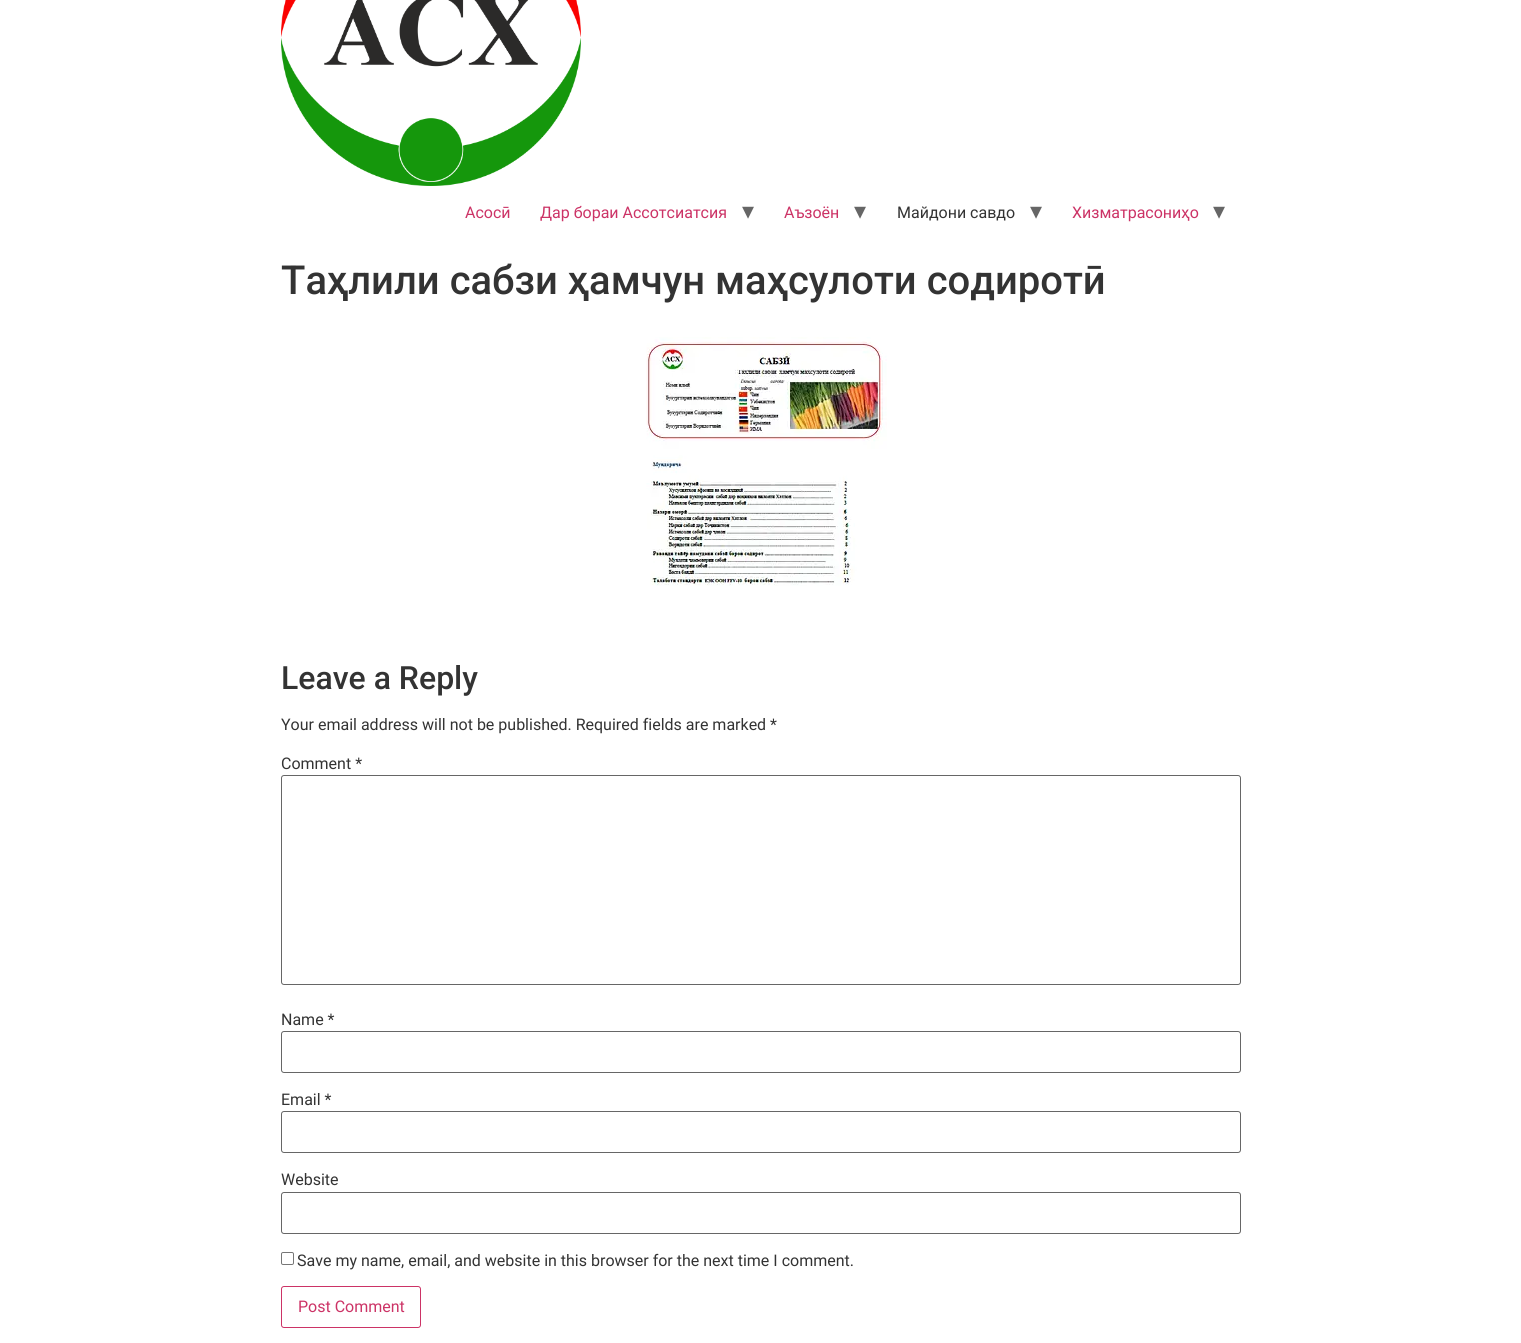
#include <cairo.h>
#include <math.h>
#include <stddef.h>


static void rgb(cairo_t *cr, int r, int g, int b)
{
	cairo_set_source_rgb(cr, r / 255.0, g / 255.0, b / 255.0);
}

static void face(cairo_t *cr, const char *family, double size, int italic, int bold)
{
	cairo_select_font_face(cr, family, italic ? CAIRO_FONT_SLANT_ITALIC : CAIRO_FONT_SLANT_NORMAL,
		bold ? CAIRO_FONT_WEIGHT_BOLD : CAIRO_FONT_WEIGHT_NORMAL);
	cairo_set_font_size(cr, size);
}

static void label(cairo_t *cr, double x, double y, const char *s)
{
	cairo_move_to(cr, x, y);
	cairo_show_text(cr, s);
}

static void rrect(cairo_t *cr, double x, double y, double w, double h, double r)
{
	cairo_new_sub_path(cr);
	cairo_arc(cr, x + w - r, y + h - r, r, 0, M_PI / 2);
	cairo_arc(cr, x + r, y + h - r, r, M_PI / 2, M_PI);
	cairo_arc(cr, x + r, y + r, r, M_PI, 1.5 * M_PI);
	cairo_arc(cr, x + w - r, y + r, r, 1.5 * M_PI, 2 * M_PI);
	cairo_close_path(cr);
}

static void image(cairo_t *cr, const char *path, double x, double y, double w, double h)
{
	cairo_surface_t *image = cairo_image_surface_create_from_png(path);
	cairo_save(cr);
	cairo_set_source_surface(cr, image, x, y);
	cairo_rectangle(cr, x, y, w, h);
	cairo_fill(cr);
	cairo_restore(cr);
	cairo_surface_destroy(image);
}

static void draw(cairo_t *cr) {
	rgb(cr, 255, 255, 255);
	cairo_paint(cr);
	image(cr, "image0.png", 281, 0, 300, 186);
	face(cr, "Roboto", 16, 0, 0);
	rgb(cr, 204, 51, 102);
	label(cr, 465, 218, "Асосӣ");
	label(cr, 540, 218, "Дар бораи Ассотсиатсия");
	face(cr, "DejaVu Sans", 24, 0, 0);
	rgb(cr, 102, 102, 102);
	label(cr, 742, 219, "▾");
	face(cr, "Roboto", 16, 0, 0);
	rgb(cr, 204, 51, 102);
	label(cr, 784, 218, "Аъзоён");
	face(cr, "DejaVu Sans", 24, 0, 0);
	rgb(cr, 102, 102, 102);
	label(cr, 854, 219, "▾");
	face(cr, "Roboto", 16, 0, 0);
	rgb(cr, 51, 51, 51);
	label(cr, 897, 218, "Майдони савдо");
	face(cr, "DejaVu Sans", 24, 0, 0);
	rgb(cr, 102, 102, 102);
	label(cr, 1030, 219, "▾");
	face(cr, "Roboto", 16, 0, 0);
	rgb(cr, 204, 51, 102);
	label(cr, 1072, 218, "Хизматрасониҳо");
	face(cr, "DejaVu Sans", 24, 0, 0);
	rgb(cr, 102, 102, 102);
	label(cr, 1213, 219, "▾");
	face(cr, "Roboto Medium", 40, 0, 0);
	rgb(cr, 51, 51, 51);
	label(cr, 281, 294, "Таҳлили сабзи ҳамчун маҳсулоти содиротӣ");
	image(cr, "image1.png", 646, 337, 241, 249);
	face(cr, "Roboto Medium", 32, 0, 0);
	label(cr, 281, 689, "Leave a Reply");
	face(cr, "Roboto", 16, 0, 0);
	label(cr, 281, 730, "Your email address will not be published. Required fields are marked *");
	label(cr, 281, 769, "Comment *");
	rrect(cr, 281.5, 775.5, 959, 209, 2.5);
	rgb(cr, 102, 102, 102);
	cairo_set_line_width(cr, 1);
	cairo_stroke(cr);
	rgb(cr, 51, 51, 51);
	label(cr, 281, 1025, "Name *");
	rrect(cr, 281.5, 1031.5, 959, 41, 2.5);
	rgb(cr, 102, 102, 102);
	cairo_stroke(cr);
	rgb(cr, 51, 51, 51);
	label(cr, 281, 1105, "Email *");
	rrect(cr, 281.5, 1111.5, 959, 41, 2.5);
	rgb(cr, 102, 102, 102);
	cairo_stroke(cr);
	rgb(cr, 51, 51, 51);
	label(cr, 281, 1185, "Website");
	rrect(cr, 281.5, 1192.5, 959, 41, 2.5);
	rgb(cr, 102, 102, 102);
	cairo_stroke(cr);
	rrect(cr, 281.5, 1252.5, 12, 12, 1.5);
	rgb(cr, 118, 118, 118);
	cairo_stroke(cr);
	rgb(cr, 51, 51, 51);
	label(cr, 297, 1266, "Save my name, email, and website in this browser for the next time I comment.");
	rrect(cr, 281.5, 1286.5, 139, 41, 2.5);
	rgb(cr, 204, 51, 102);
	cairo_stroke(cr);
	label(cr, 298, 1312, "Post Comment");
}

int main(void) {
	cairo_surface_t *surface = cairo_image_surface_create(CAIRO_FORMAT_RGB24, 1521, 1343);
	cairo_t *cr = cairo_create(surface);
	cairo_font_options_t *options = cairo_font_options_create();
	cairo_font_options_set_hint_metrics(options, CAIRO_HINT_METRICS_OFF);
	cairo_font_options_set_hint_style(options, CAIRO_HINT_STYLE_NONE);
	cairo_set_font_options(cr, options);
	cairo_set_miter_limit(cr, 4);
	draw(cr);
	cairo_surface_write_to_png(surface, "render.png");
	cairo_font_options_destroy(options);
	cairo_destroy(cr);
	cairo_surface_destroy(surface);
	return 0;
}
